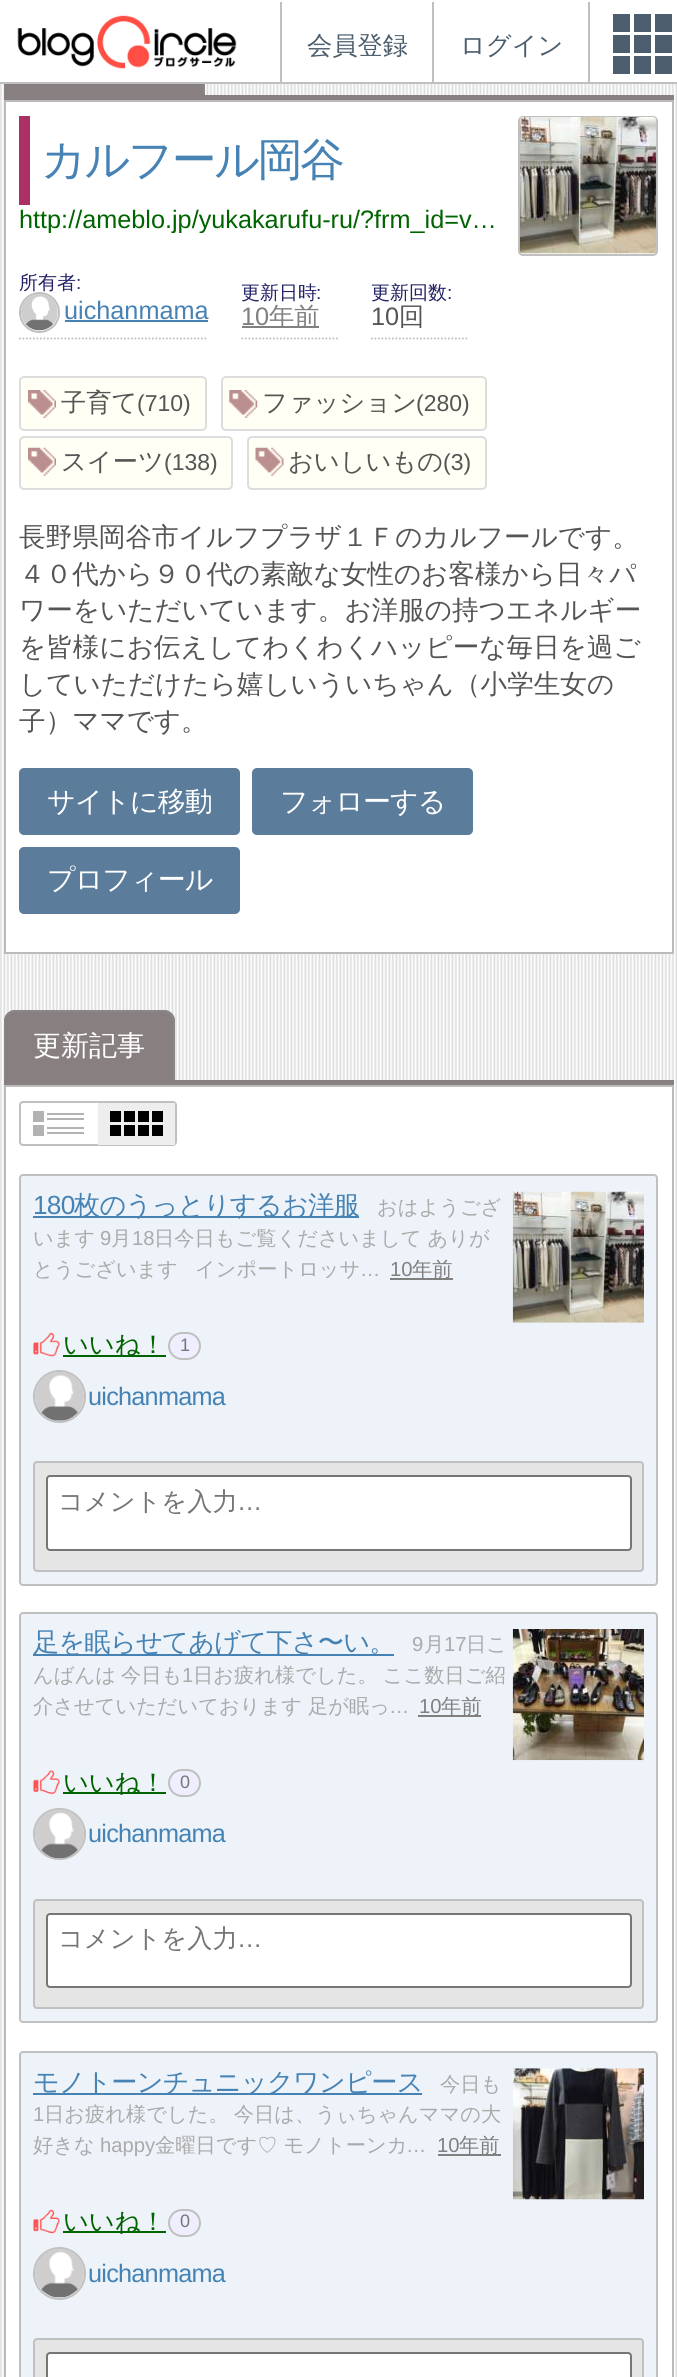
#include <cairo.h>
#include <math.h>
#include <stddef.h>


static void rgb(cairo_t *cr, int r, int g, int b)
{
	cairo_set_source_rgb(cr, r / 255.0, g / 255.0, b / 255.0);
}

static void face(cairo_t *cr, const char *family, double size, int italic, int bold)
{
	cairo_select_font_face(cr, family, italic ? CAIRO_FONT_SLANT_ITALIC : CAIRO_FONT_SLANT_NORMAL,
		bold ? CAIRO_FONT_WEIGHT_BOLD : CAIRO_FONT_WEIGHT_NORMAL);
	cairo_set_font_size(cr, size);
}

static void label(cairo_t *cr, double x, double y, const char *s)
{
	cairo_move_to(cr, x, y);
	cairo_show_text(cr, s);
}

static void tracked(cairo_t *cr, double x, double y, const char *s, double letter, double word)
{
	cairo_move_to(cr, x, y);
	while (*s) {
		char ch[5] = {0};
		int n = 0;
		do ch[n++] = *s++; while ((*s & 0xC0) == 0x80);
		cairo_show_text(cr, ch);
		cairo_rel_move_to(cr, letter + word * (*ch == ' '), 0);
	}
}

static void rect(cairo_t *cr, double x, double y, double w, double h)
{
	cairo_rectangle(cr, x, y, w, h);
	cairo_fill(cr);
}

static void rrect(cairo_t *cr, double x, double y, double w, double h, double r)
{
	cairo_new_sub_path(cr);
	cairo_arc(cr, x + w - r, y + h - r, r, 0, M_PI / 2);
	cairo_arc(cr, x + r, y + h - r, r, M_PI / 2, M_PI);
	cairo_arc(cr, x + r, y + r, r, M_PI, 1.5 * M_PI);
	cairo_arc(cr, x + w - r, y + r, r, 1.5 * M_PI, 2 * M_PI);
	cairo_close_path(cr);
}

static void image(cairo_t *cr, const char *path, double x, double y, double w, double h)
{
	cairo_surface_t *image = cairo_image_surface_create_from_png(path);
	cairo_save(cr);
	cairo_set_source_surface(cr, image, x, y);
	cairo_rectangle(cr, x, y, w, h);
	cairo_fill(cr);
	cairo_restore(cr);
	cairo_surface_destroy(image);
}

static void draw(cairo_t *cr) {
	rgb(cr, 255, 255, 255);
	cairo_paint(cr);
	image(cr, "image0.png", 0, 84, 677, 2293);
	rgb(cr, 136, 128, 128);
	rect(cr, 4, 84, 201, 11);
	rgb(cr, 136, 136, 136);
	cairo_set_fill_rule(cr, CAIRO_FILL_RULE_EVEN_ODD);
	cairo_new_path(cr);
	cairo_move_to(cr, 15, 26);
	cairo_line_to(cr, 194, 26);
	cairo_curve_to(cr, 200, 26, 205, 31, 205, 37);
	cairo_line_to(cr, 205, 94);
	cairo_line_to(cr, 4, 94);
	cairo_line_to(cr, 4, 37);
	cairo_curve_to(cr, 4, 31, 9, 26, 15, 26);
	cairo_close_path(cr);
	cairo_move_to(cr, 15, 28);
	cairo_line_to(cr, 194, 28);
	cairo_curve_to(cr, 199, 28, 203, 32, 203, 37);
	cairo_line_to(cr, 203, 94);
	cairo_line_to(cr, 5, 94);
	cairo_line_to(cr, 5, 37);
	cairo_curve_to(cr, 5, 32, 9, 28, 15, 28);
	cairo_close_path(cr);
	cairo_fill(cr);
	rgb(cr, 255, 255, 255);
	rect(cr, 4, 26, 201, 56);
	rgb(cr, 192, 192, 192);
	rect(cr, 0, 82, 677, 2);
	image(cr, "image1.png", 17, 15, 220, 54);
	rect(cr, 280, 2, 2, 80);
	face(cr, "WenQuanYi Zen Hei Medium", 25.25, 0, 0);
	rgb(cr, 76, 94, 109);
	label(cr, 307, 54, "会員登録");
	rgb(cr, 192, 192, 192);
	rect(cr, 432, 2, 2, 80);
	rgb(cr, 76, 94, 109);
	label(cr, 460, 54, "ログイン");
	rgb(cr, 192, 192, 192);
	rect(cr, 588, 2, 2, 80);
	rgb(cr, 76, 94, 109);
	rect(cr, 613, 14, 59, 18);
	rgb(cr, 255, 255, 255);
	rect(cr, 651, 14, 4, 18);
	rect(cr, 630, 14, 4, 18);
	rgb(cr, 76, 94, 109);
	rect(cr, 613, 35, 59, 18);
	rgb(cr, 255, 255, 255);
	rect(cr, 651, 35, 4, 18);
	rect(cr, 630, 35, 4, 18);
	rgb(cr, 76, 94, 109);
	rect(cr, 613, 56, 59, 18);
	rgb(cr, 255, 255, 255);
	rect(cr, 651, 56, 4, 18);
	rect(cr, 630, 56, 4, 18);
	rgb(cr, 136, 128, 128);
	rect(cr, 4, 95, 670, 5);
	rgb(cr, 255, 255, 255);
	cairo_rectangle(cr, 5, 101, 668, 852);
	cairo_fill_preserve(cr);
	rgb(cr, 187, 187, 187);
	cairo_stroke(cr);
	rgb(cr, 171, 48, 99);
	rect(cr, 19, 116, 11, 89);
	face(cr, "WenQuanYi Zen Hei Medium", 44.75, 0, 0);
	rgb(cr, 70, 130, 180);
	tracked(cr, 41, 175, "カルフール岡谷", -2.25, 0);
	rrect(cr, 519, 117, 138, 138, 4);
	rgb(cr, 192, 192, 192);
	cairo_stroke(cr);
	image(cr, "image2.png", 519, 117, 138, 137);
	cairo_save(cr);
	cairo_set_fill_rule(cr, CAIRO_FILL_RULE_WINDING);
	cairo_rectangle(cr, 19, 205, 482, 28);
	cairo_clip(cr);
	face(cr, "Liberation Sans", 25.25, 0, 0);
	rgb(cr, 0, 100, 0);
	label(cr, 19, 228, "http://ameblo.jp/yukakarufu-ru/?frm_id=v…");
	cairo_restore(cr);
	cairo_new_path(cr);
	cairo_move_to(cr, 19, 338.5);
	cairo_line_to(cr, 208, 338.5);
	cairo_set_line_width(cr, 1.8);
	cairo_set_dash(cr, (double[]){1.75, 1.75}, 2, 0);
	cairo_stroke(cr);
	face(cr, "WenQuanYi Zen Hei Medium", 19, 0, 0);
	rgb(cr, 34, 34, 102);
	label(cr, 19, 289, "所有者");
	face(cr, "Liberation Sans", 19, 0, 0);
	label(cr, 76, 289, ":");
	cairo_new_path(cr);
	cairo_arc(cr, 39.5, 312.5, 19.5, 0, 2 * M_PI);
	rgb(cr, 192, 192, 192);
	cairo_set_line_width(cr, 2);
	cairo_set_dash(cr, NULL, 0, 0);
	cairo_stroke(cr);
	image(cr, "image3.png", 21, 294, 37, 37);
	face(cr, "Liberation Sans", 25.25, 0, 0);
	rgb(cr, 70, 130, 180);
	label(cr, 64, 319, "uichanmama");
	rect(cr, 65, 320, 143, 2);
	cairo_new_path(cr);
	cairo_move_to(cr, 241.5, 338.5);
	cairo_line_to(cr, 339.5, 338.5);
	rgb(cr, 192, 192, 192);
	cairo_set_line_width(cr, 1.8);
	cairo_set_dash(cr, (double[]){1.75, 1.75}, 2, 0);
	cairo_stroke(cr);
	face(cr, "WenQuanYi Zen Hei Medium", 19, 0, 0);
	rgb(cr, 34, 34, 102);
	label(cr, 241, 299, "更新日時");
	face(cr, "Liberation Sans", 19, 0, 0);
	label(cr, 316, 299, ":");
	face(cr, "Liberation Sans", 25.25, 0, 0);
	rgb(cr, 128, 128, 128);
	label(cr, 241, 325, "10");
	rect(cr, 242, 326, 77, 2);
	face(cr, "WenQuanYi Zen Hei Medium", 25.25, 0, 0);
	label(cr, 269, 325, "年前");
	cairo_new_path(cr);
	cairo_move_to(cr, 371, 338.5);
	cairo_line_to(cr, 469, 338.5);
	rgb(cr, 192, 192, 192);
	cairo_stroke(cr);
	face(cr, "WenQuanYi Zen Hei Medium", 19, 0, 0);
	rgb(cr, 34, 34, 102);
	label(cr, 371, 299, "更新回数");
	face(cr, "Liberation Sans", 19, 0, 0);
	label(cr, 447, 299, ":");
	face(cr, "Liberation Sans", 25.25, 0, 0);
	rgb(cr, 85, 85, 85);
	label(cr, 371, 325, "10");
	face(cr, "WenQuanYi Zen Hei Medium", 25.25, 0, 0);
	label(cr, 399, 325, "回");
	rgb(cr, 255, 255, 245);
	rrect(cr, 19, 376, 188, 55, 5);
	cairo_fill(cr);
	image(cr, "image4.png", 28, 390, 28, 28);
	rrect(cr, 20, 377, 186, 53, 4);
	rgb(cr, 221, 221, 221);
	cairo_set_line_width(cr, 2);
	cairo_set_dash(cr, NULL, 0, 0);
	cairo_stroke(cr);
	rgb(cr, 85, 85, 85);
	label(cr, 61, 411, "子育て");
	face(cr, "Liberation Sans", 23, 0, 0);
	label(cr, 137, 411, "(710)");
	rgb(cr, 255, 255, 245);
	rrect(cr, 221, 376, 266, 55, 5);
	cairo_fill(cr);
	image(cr, "image5.png", 229, 390, 29, 28);
	rrect(cr, 222, 377, 264, 53, 4);
	rgb(cr, 221, 221, 221);
	cairo_stroke(cr);
	face(cr, "WenQuanYi Zen Hei Medium", 25.25, 0, 0);
	rgb(cr, 85, 85, 85);
	label(cr, 262, 411, "ファッション");
	face(cr, "Liberation Sans", 23, 0, 0);
	label(cr, 416, 411, "(280)");
	rgb(cr, 255, 255, 245);
	rrect(cr, 19, 436, 214, 54, 5);
	cairo_fill(cr);
	image(cr, "image6.png", 28, 447, 28, 29);
	rrect(cr, 20, 437, 212, 52, 4);
	rgb(cr, 221, 221, 221);
	cairo_stroke(cr);
	face(cr, "WenQuanYi Zen Hei Medium", 25.25, 0, 0);
	rgb(cr, 85, 85, 85);
	label(cr, 61, 470, "スイーツ");
	face(cr, "Liberation Sans", 23, 0, 0);
	label(cr, 164, 470, "(138)");
	rgb(cr, 255, 255, 245);
	rrect(cr, 247, 436, 240, 54, 5);
	cairo_fill(cr);
	image(cr, "image7.png", 255, 447, 29, 29);
	rrect(cr, 248, 437, 238, 52, 4);
	rgb(cr, 221, 221, 221);
	cairo_stroke(cr);
	face(cr, "WenQuanYi Zen Hei Medium", 25.25, 0, 0);
	rgb(cr, 85, 85, 85);
	label(cr, 288, 470, "おいしいもの");
	face(cr, "Liberation Sans", 23, 0, 0);
	label(cr, 443, 470, "(3)");
	face(cr, "WenQuanYi Zen Hei Medium", 26.6, 0, 0);
	label(cr, 19, 546, "長野県岡谷市イルフプラザ１Ｆのカルフールです。");
	label(cr, 19, 583, "４０代から９０代の素敵な女性のお客様から日々パ");
	label(cr, 19, 619, "ワーをいただいています。お洋服の持つエネルギー");
	label(cr, 19, 656, "を皆様にお伝えしてわくわくハッピーな毎日を過ご");
	label(cr, 19, 693, "していただけたら嬉しいういちゃん（小学生女の");
	label(cr, 19, 730, "子）ママです。");
	rgb(cr, 91, 124, 154);
	rrect(cr, 19, 768, 221, 67, 5);
	cairo_fill(cr);
	face(cr, "WenQuanYi Zen Hei Medium", 28, 0, 0);
	rgb(cr, 255, 255, 255);
	tracked(cr, 47, 811, "サイトに移動", -1, 0);
	rgb(cr, 91, 124, 154);
	rrect(cr, 252, 768, 221, 67, 5);
	cairo_fill(cr);
	rgb(cr, 255, 255, 255);
	tracked(cr, 280, 811, "フォローする", -1, 0);
	rgb(cr, 91, 124, 154);
	rrect(cr, 19, 847, 221, 67, 5);
	cairo_fill(cr);
	rgb(cr, 255, 255, 255);
	tracked(cr, 47, 889, "プロフィール", -1, 0);
	rgb(cr, 136, 128, 128);
	rect(cr, 4, 1080, 670, 5);
	cairo_new_path(cr);
	cairo_move_to(cr, 15, 1010);
	cairo_line_to(cr, 164, 1010);
	cairo_curve_to(cr, 170, 1010, 175, 1015, 175, 1021);
	cairo_line_to(cr, 175, 1080);
	cairo_line_to(cr, 4, 1080);
	cairo_line_to(cr, 4, 1021);
	cairo_curve_to(cr, 4, 1015, 9, 1010, 15, 1010);
	cairo_close_path(cr);
	cairo_fill(cr);
	rgb(cr, 136, 136, 136);
	cairo_new_path(cr);
	cairo_move_to(cr, 15, 1010);
	cairo_line_to(cr, 164, 1010);
	cairo_curve_to(cr, 170, 1010, 175, 1015, 175, 1021);
	cairo_line_to(cr, 175, 1080);
	cairo_line_to(cr, 4, 1080);
	cairo_line_to(cr, 4, 1021);
	cairo_curve_to(cr, 4, 1015, 9, 1010, 15, 1010);
	cairo_close_path(cr);
	cairo_move_to(cr, 15, 1012);
	cairo_line_to(cr, 164, 1012);
	cairo_curve_to(cr, 169, 1012, 173, 1016, 173, 1021);
	cairo_line_to(cr, 173, 1080);
	cairo_line_to(cr, 5, 1080);
	cairo_line_to(cr, 5, 1021);
	cairo_curve_to(cr, 5, 1016, 9, 1012, 15, 1012);
	cairo_close_path(cr);
	cairo_fill(cr);
	rgb(cr, 255, 255, 255);
	label(cr, 33, 1055, "更新記事");
	cairo_rectangle(cr, 5, 1086, 668, 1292);
	cairo_fill_preserve(cr);
	rgb(cr, 187, 187, 187);
	cairo_stroke(cr);
	rrect(cr, 20, 1102, 156, 43, 3);
	rgb(cr, 192, 192, 192);
	cairo_stroke(cr);
	rgb(cr, 179, 179, 179);
	rect(cr, 33, 1111, 11, 11);
	rect(cr, 47, 1113, 37, 2);
	rect(cr, 47, 1118, 37, 2);
	rect(cr, 33, 1125, 11, 11);
	rect(cr, 47, 1127, 37, 2);
	rect(cr, 47, 1132, 37, 2);
	rgb(cr, 238, 238, 238);
	rect(cr, 98, 1103, 77, 42);
	rgb(cr, 0, 0, 0);
	rect(cr, 110, 1111, 11, 11);
	rect(cr, 124, 1111, 11, 11);
	rect(cr, 138, 1111, 11, 11);
	rect(cr, 152, 1111, 11, 11);
	rect(cr, 110, 1125, 11, 11);
	rect(cr, 124, 1125, 11, 11);
	rect(cr, 138, 1125, 11, 11);
	rect(cr, 152, 1125, 11, 11);
	rgb(cr, 237, 243, 248);
	rrect(cr, 20, 1175, 637, 410, 3);
	cairo_fill_preserve(cr);
	rgb(cr, 192, 192, 192);
	cairo_stroke(cr);
	face(cr, "Liberation Sans", 26.2, 0, 0);
	rgb(cr, 70, 130, 180);
	tracked(cr, 33, 1214, "180", -0.75, 0);
	rect(cr, 33, 1216, 326, 2);
	face(cr, "WenQuanYi Zen Hei Medium", 26.2, 0, 0);
	tracked(cr, 74, 1214, "枚のうっとりするお洋服", -0.75, 0);
	face(cr, "WenQuanYi Zen Hei Medium", 20.25, 0, 0);
	rgb(cr, 170, 170, 170);
	label(cr, 377, 1214, "おはようござ");
	label(cr, 33, 1245, "います");
	face(cr, "Liberation Sans", 20.25, 0, 0);
	label(cr, 100, 1245, "9");
	face(cr, "WenQuanYi Zen Hei Medium", 20.25, 0, 0);
	label(cr, 111, 1245, "月");
	face(cr, "Liberation Sans", 20.25, 0, 0);
	label(cr, 132, 1245, "18");
	face(cr, "WenQuanYi Zen Hei Medium", 20.25, 0, 0);
	label(cr, 154, 1245, "日今日もご覧くださいまして ありが");
	label(cr, 33, 1276, "とうございます");
	label(cr, 195, 1276, "インポートロッサ");
	face(cr, "Liberation Sans", 20.25, 0, 0);
	label(cr, 360, 1276, "…");
	rgb(cr, 128, 128, 128);
	label(cr, 390, 1276, "10");
	rect(cr, 390, 1278, 63, 2);
	face(cr, "WenQuanYi Zen Hei Medium", 20.25, 0, 0);
	label(cr, 412, 1276, "年前");
	image(cr, "image8.png", 33, 1332, 27, 25);
	rgb(cr, 0, 100, 0);
	rect(cr, 63, 1355, 103, 2);
	face(cr, "WenQuanYi Zen Hei Medium", 25.25, 0, 0);
	label(cr, 63, 1353, "いいね！");
	rgb(cr, 238, 238, 255);
	rrect(cr, 169, 1333, 31, 26, 13);
	cairo_fill_preserve(cr);
	rgb(cr, 192, 192, 192);
	cairo_stroke(cr);
	face(cr, "Liberation Sans", 18, 0, 0);
	rgb(cr, 117, 117, 117);
	label(cr, 180, 1351, "1");
	cairo_new_path(cr);
	cairo_arc(cr, 59.5, 1396.5, 25.5, 0, 2 * M_PI);
	rgb(cr, 192, 192, 192);
	cairo_stroke(cr);
	image(cr, "image9.png", 35, 1372, 49, 49);
	face(cr, "Liberation Sans", 25.25, 0, 0);
	rgb(cr, 70, 130, 180);
	tracked(cr, 88, 1405, "uichanmama", -0.75, 0);
	image(cr, "image10.png", 512, 1191, 132, 132);
	rgb(cr, 229, 229, 229);
	rrect(cr, 34, 1462, 609, 109, 3);
	cairo_fill_preserve(cr);
	rgb(cr, 192, 192, 192);
	cairo_stroke(cr);
	rgb(cr, 255, 255, 255);
	rrect(cr, 47, 1476, 584, 74, 3);
	cairo_fill_preserve(cr);
	rgb(cr, 118, 118, 118);
	cairo_stroke(cr);
	face(cr, "WenQuanYi Zen Hei Medium", 25.25, 0, 0);
	rgb(cr, 117, 117, 117);
	label(cr, 58, 1510, "コメントを入力");
	face(cr, "Liberation Sans", 25.25, 0, 0);
	label(cr, 237, 1510, "…");
	rgb(cr, 237, 243, 248);
	rrect(cr, 20, 1613, 637, 409, 3);
	cairo_fill_preserve(cr);
	rgb(cr, 192, 192, 192);
	cairo_stroke(cr);
	rgb(cr, 70, 130, 180);
	rect(cr, 33, 1654, 361, 2);
	face(cr, "WenQuanYi Zen Hei Medium", 26.2, 0, 0);
	tracked(cr, 33, 1651, "足を眠らせてあげて下さ〜い。", -0.75, 0);
	face(cr, "Liberation Sans", 20.25, 0, 0);
	rgb(cr, 170, 170, 170);
	label(cr, 412, 1651, "9");
	face(cr, "WenQuanYi Zen Hei Medium", 20.25, 0, 0);
	label(cr, 424, 1651, "月");
	face(cr, "Liberation Sans", 20.25, 0, 0);
	label(cr, 444, 1651, "17");
	face(cr, "WenQuanYi Zen Hei Medium", 20.25, 0, 0);
	label(cr, 466, 1651, "日こ");
	tracked(cr, 33, 1682, "んばんは 今日も", 0, -1);
	face(cr, "Liberation Sans", 20.25, 0, 0);
	label(cr, 182, 1682, "1");
	face(cr, "WenQuanYi Zen Hei Medium", 20.25, 0, 0);
	tracked(cr, 193, 1682, "日お疲れ様でした。 ここ数日ご紹", 0, -1);
	label(cr, 33, 1713, "介させていただいております 足が眠っ");
	face(cr, "Liberation Sans", 20.25, 0, 0);
	label(cr, 389, 1713, "…");
	rgb(cr, 128, 128, 128);
	rect(cr, 418, 1715, 63, 2);
	label(cr, 419, 1713, "10");
	face(cr, "WenQuanYi Zen Hei Medium", 20.25, 0, 0);
	label(cr, 441, 1713, "年前");
	image(cr, "image11.png", 33, 1770, 27, 25);
	rgb(cr, 0, 100, 0);
	rect(cr, 63, 1792, 103, 2);
	face(cr, "WenQuanYi Zen Hei Medium", 25.25, 0, 0);
	label(cr, 63, 1791, "いいね！");
	rgb(cr, 238, 238, 255);
	rrect(cr, 169, 1770, 31, 26, 13);
	cairo_fill_preserve(cr);
	rgb(cr, 192, 192, 192);
	cairo_stroke(cr);
	face(cr, "Liberation Sans", 18, 0, 0);
	rgb(cr, 117, 117, 117);
	label(cr, 180, 1788, "0");
	rrect(cr, 34, 1809, 51, 50, 25);
	rgb(cr, 192, 192, 192);
	cairo_stroke(cr);
	image(cr, "image12.png", 35, 1809, 49, 50);
	face(cr, "Liberation Sans", 25.25, 0, 0);
	rgb(cr, 70, 130, 180);
	tracked(cr, 88, 1842, "uichanmama", -0.75, 0);
	image(cr, "image13.png", 512, 1629, 132, 132);
	rgb(cr, 229, 229, 229);
	rrect(cr, 34, 1900, 609, 108, 3);
	cairo_fill_preserve(cr);
	rgb(cr, 192, 192, 192);
	cairo_stroke(cr);
	rgb(cr, 255, 255, 255);
	rrect(cr, 47, 1914, 584, 73, 3);
	cairo_fill_preserve(cr);
	rgb(cr, 118, 118, 118);
	cairo_stroke(cr);
	face(cr, "WenQuanYi Zen Hei Medium", 25.25, 0, 0);
	rgb(cr, 117, 117, 117);
	label(cr, 58, 1947, "コメントを入力");
	face(cr, "Liberation Sans", 25.25, 0, 0);
	label(cr, 237, 1947, "…");
	rgb(cr, 237, 243, 248);
	rrect(cr, 20, 2052, 637, 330, 3);
	cairo_fill_preserve(cr);
	rgb(cr, 192, 192, 192);
	cairo_stroke(cr);
	rgb(cr, 70, 130, 180);
	rect(cr, 33, 2093, 389, 2);
	face(cr, "WenQuanYi Zen Hei Medium", 26.2, 0, 0);
	tracked(cr, 33, 2091, "モノトーンチュニックワンピース", -0.75, 0);
	face(cr, "WenQuanYi Zen Hei Medium", 20.25, 0, 0);
	rgb(cr, 170, 170, 170);
	label(cr, 440, 2091, "今日も");
	face(cr, "Liberation Sans", 20.25, 0, 0);
	label(cr, 33, 2121, "1");
	face(cr, "WenQuanYi Zen Hei Medium", 20.25, 0, 0);
	tracked(cr, 44, 2121, "日お疲れ様でした。 今日は、うぃちゃんママの大", 0, -1);
	label(cr, 33, 2152, "好きな");
	face(cr, "Liberation Sans", 20.25, 0, 0);
	label(cr, 100, 2152, "happy");
	face(cr, "WenQuanYi Zen Hei Medium", 20.25, 0, 0);
	label(cr, 155, 2152, "金曜日です♡ モノトーンカ");
	face(cr, "Liberation Sans", 20.25, 0, 0);
	label(cr, 406, 2152, "…");
	rgb(cr, 128, 128, 128);
	label(cr, 437, 2152, "10");
	rect(cr, 438, 2154, 63, 2);
	face(cr, "WenQuanYi Zen Hei Medium", 20.25, 0, 0);
	label(cr, 459, 2152, "年前");
	image(cr, "image14.png", 33, 2209, 27, 25);
	rgb(cr, 0, 100, 0);
	rect(cr, 63, 2231, 103, 2);
	face(cr, "WenQuanYi Zen Hei Medium", 25.25, 0, 0);
	label(cr, 63, 2230, "いいね！");
	rgb(cr, 238, 238, 255);
	rrect(cr, 169, 2210, 31, 26, 13);
	cairo_fill_preserve(cr);
	rgb(cr, 192, 192, 192);
	cairo_stroke(cr);
	face(cr, "Liberation Sans", 18, 0, 0);
	rgb(cr, 117, 117, 117);
	label(cr, 180, 2227, "0");
	cairo_new_path(cr);
	cairo_arc(cr, 59.5, 2273.5, 25.5, 0, 2 * M_PI);
	rgb(cr, 192, 192, 192);
	cairo_stroke(cr);
	image(cr, "image15.png", 35, 2248, 49, 50);
	face(cr, "Liberation Sans", 25.25, 0, 0);
	rgb(cr, 70, 130, 180);
	tracked(cr, 88, 2282, "uichanmama", -0.75, 0);
	image(cr, "image16.png", 512, 2068, 132, 132);
	rgb(cr, 229, 229, 229);
	rrect(cr, 34, 2339, 609, 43, 3);
	cairo_fill_preserve(cr);
	rgb(cr, 192, 192, 192);
	cairo_stroke(cr);
	rgb(cr, 255, 255, 255);
	rrect(cr, 47, 2353, 584, 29, 3);
	cairo_fill_preserve(cr);
	rgb(cr, 118, 118, 118);
	cairo_stroke(cr);
}

int main(void) {
	cairo_surface_t *surface = cairo_image_surface_create(CAIRO_FORMAT_RGB24, 677, 2377);
	cairo_t *cr = cairo_create(surface);
	cairo_font_options_t *options = cairo_font_options_create();
	cairo_font_options_set_hint_metrics(options, CAIRO_HINT_METRICS_OFF);
	cairo_font_options_set_hint_style(options, CAIRO_HINT_STYLE_NONE);
	cairo_set_font_options(cr, options);
	cairo_set_miter_limit(cr, 4);
	draw(cr);
	cairo_surface_write_to_png(surface, "render.png");
	cairo_font_options_destroy(options);
	cairo_destroy(cr);
	cairo_surface_destroy(surface);
	return 0;
}
